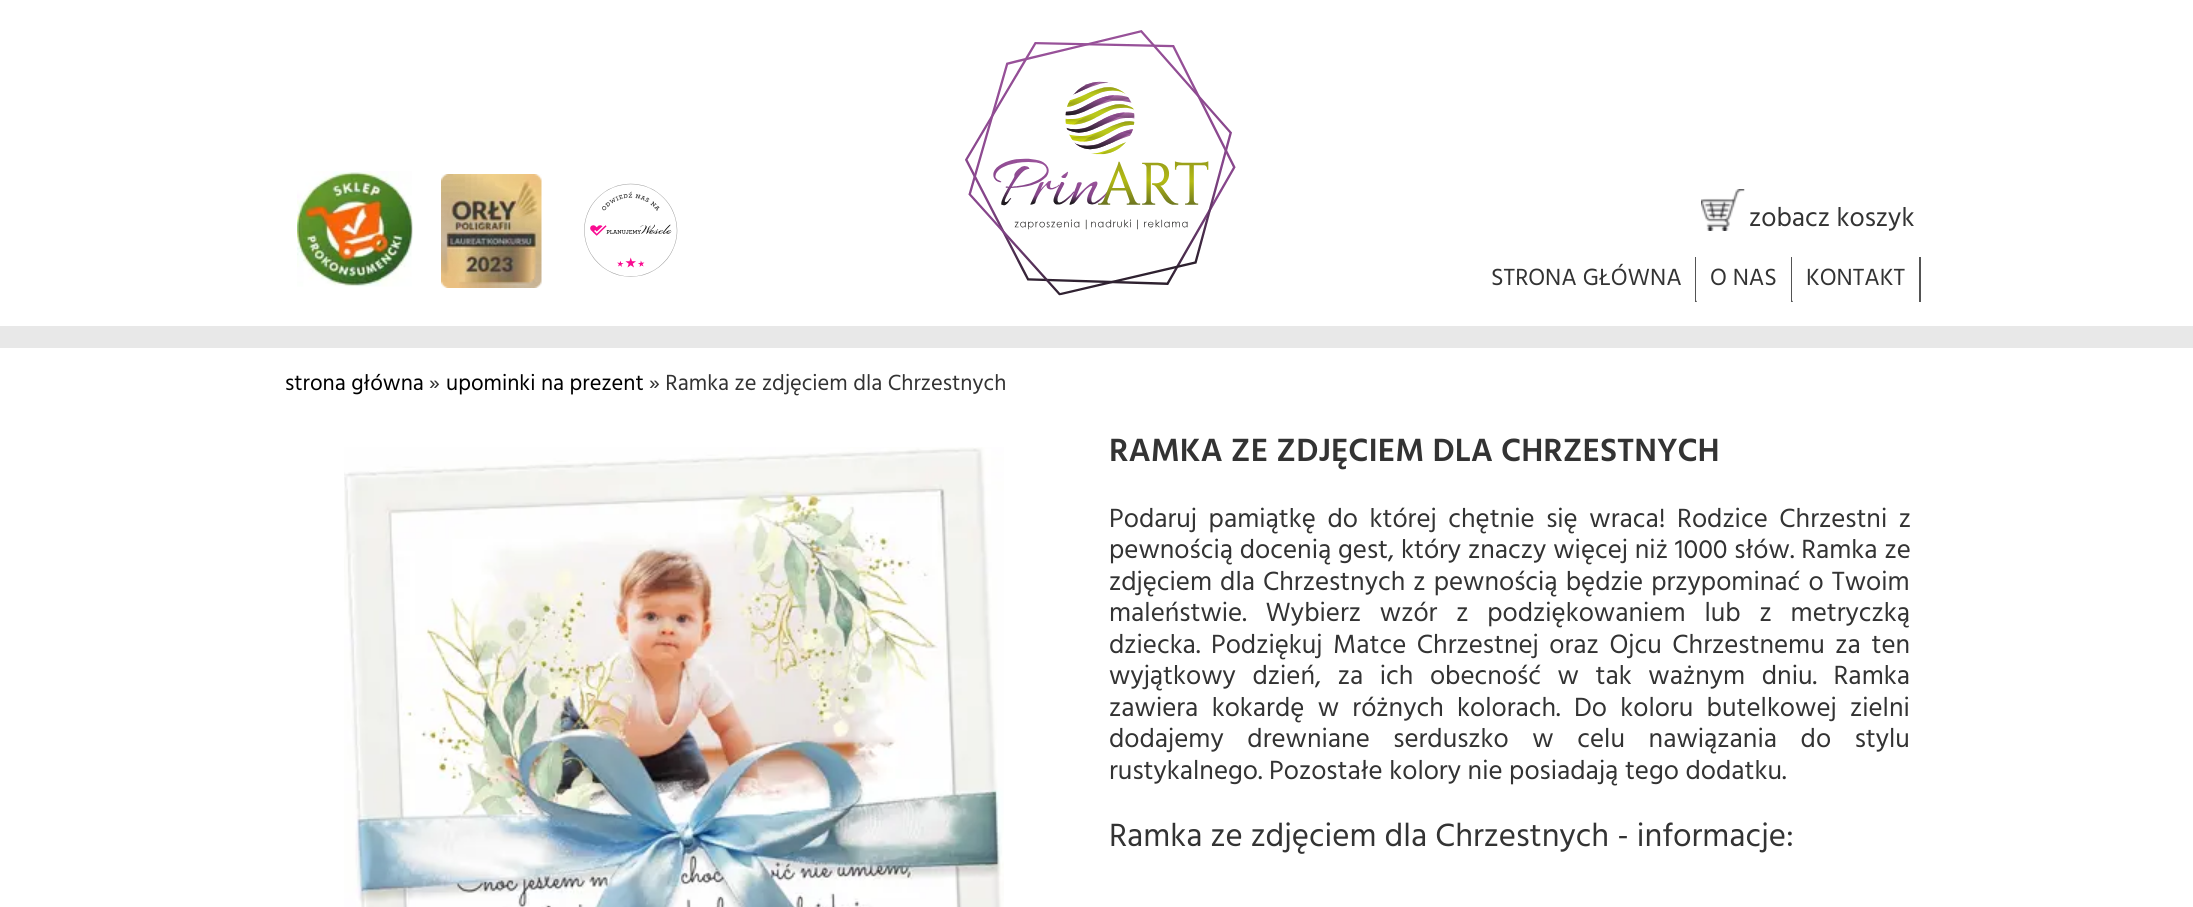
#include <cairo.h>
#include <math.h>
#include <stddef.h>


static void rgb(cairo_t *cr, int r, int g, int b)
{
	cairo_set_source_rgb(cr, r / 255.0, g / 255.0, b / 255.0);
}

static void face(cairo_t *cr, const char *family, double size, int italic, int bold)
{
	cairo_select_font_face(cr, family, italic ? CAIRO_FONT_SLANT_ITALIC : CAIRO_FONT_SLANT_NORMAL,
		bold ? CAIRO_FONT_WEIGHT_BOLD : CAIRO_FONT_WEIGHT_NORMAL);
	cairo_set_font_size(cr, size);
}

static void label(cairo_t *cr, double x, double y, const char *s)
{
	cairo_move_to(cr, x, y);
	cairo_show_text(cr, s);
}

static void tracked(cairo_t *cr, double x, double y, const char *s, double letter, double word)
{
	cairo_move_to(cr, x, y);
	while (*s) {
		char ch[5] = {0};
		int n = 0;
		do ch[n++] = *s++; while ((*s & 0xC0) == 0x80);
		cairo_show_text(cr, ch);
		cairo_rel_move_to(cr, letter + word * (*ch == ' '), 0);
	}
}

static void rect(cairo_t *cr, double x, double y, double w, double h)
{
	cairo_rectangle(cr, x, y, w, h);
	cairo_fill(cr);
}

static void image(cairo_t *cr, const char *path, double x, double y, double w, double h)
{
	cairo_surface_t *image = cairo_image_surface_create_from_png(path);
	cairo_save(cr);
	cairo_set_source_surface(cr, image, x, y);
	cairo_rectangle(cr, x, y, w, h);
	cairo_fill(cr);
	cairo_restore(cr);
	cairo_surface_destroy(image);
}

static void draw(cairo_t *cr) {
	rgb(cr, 255, 255, 255);
	cairo_paint(cr);
	image(cr, "image0.png", 297, 171, 116, 116);
	image(cr, "image1.png", 441, 174, 101, 114);
	image(cr, "image2.png", 584, 183, 94, 94);
	image(cr, "image3.png", 965, 30, 271, 266);
	image(cr, "image4.png", 1701, 189, 44, 42);
	face(cr, "Hind", 27, 0, 0);
	rgb(cr, 51, 51, 51);
	label(cr, 1749, 226, "zobacz koszyk");
	rgb(cr, 84, 84, 84);
	rect(cr, 1695, 257, 2, 45);
	face(cr, "Hind", 24, 0, 0);
	rgb(cr, 51, 51, 51);
	label(cr, 1491, 285, "STRONA GŁÓWNA");
	rgb(cr, 255, 255, 255);
	cairo_new_path(cr);
	cairo_move_to(cr, 1698, 255);
	cairo_line_to(cr, 1791, 255);
	cairo_line_to(cr, 1791, 302);
	cairo_line_to(cr, 1698, 302);
	cairo_curve_to(cr, 1697, 302, 1696, 301, 1696, 300);
	cairo_line_to(cr, 1696, 256);
	cairo_curve_to(cr, 1696, 256, 1697, 255, 1698, 255);
	cairo_close_path(cr);
	cairo_fill(cr);
	rgb(cr, 84, 84, 84);
	rect(cr, 1791, 257, 2, 45);
	rgb(cr, 51, 51, 51);
	label(cr, 1710, 285, "O NAS");
	rgb(cr, 255, 255, 255);
	cairo_new_path(cr);
	cairo_move_to(cr, 1794, 255);
	cairo_line_to(cr, 1918, 255);
	cairo_line_to(cr, 1918, 302);
	cairo_line_to(cr, 1794, 302);
	cairo_curve_to(cr, 1793, 302, 1792, 301, 1792, 300);
	cairo_line_to(cr, 1792, 256);
	cairo_curve_to(cr, 1792, 256, 1793, 255, 1794, 255);
	cairo_close_path(cr);
	cairo_fill(cr);
	rgb(cr, 84, 84, 84);
	rect(cr, 1919, 257, 2, 45);
	rgb(cr, 51, 51, 51);
	label(cr, 1806, 285, "KONTAKT");
	rgb(cr, 232, 232, 232);
	rect(cr, 0, 326, 2193, 22);
	face(cr, "Hind", 22.5, 0, 0);
	rgb(cr, 0, 0, 0);
	label(cr, 285, 390, "strona główna");
	rgb(cr, 51, 51, 51);
	label(cr, 429, 390, "»");
	rgb(cr, 0, 0, 0);
	label(cr, 446, 390, "upominki na prezent");
	rgb(cr, 51, 51, 51);
	label(cr, 649, 390, "» Ramka ze zdjęciem dla Chrzestnych");
	image(cr, "image5.png", 344, 447, 660, 460);
	face(cr, "Hind SemiBold", 33, 0, 0);
	label(cr, 1109, 461, "RAMKA ZE ZDJĘCIEM DLA CHRZESTNYCH");
	face(cr, "Hind", 27, 0, 0);
	tracked(cr, 1109, 527, "Podaruj pamiątkę do której chętnie się wraca! Rodzice Chrzestni z", 0, 5);
	tracked(cr, 1109, 558, "pewnością docenią gest, który znaczy więcej niż 1000 słów. Ramka ze", 0, 0.25);
	tracked(cr, 1109, 590, "zdjęciem dla Chrzestnych z pewnością będzie przypominać o Twoim", 0, 1.5);
	tracked(cr, 1109, 621, "maleństwie. Wybierz wzór z podziękowaniem lub z metryczką", 0, 12.25);
	tracked(cr, 1109, 653, "dziecka. Podziękuj Matce Chrzestnej oraz Ojcu Chrzestnemu za ten", 0, 4);
	tracked(cr, 1109, 684, "wyjątkowy dzień, za ich obecność w tak ważnym dniu. Ramka", 0, 10);
	tracked(cr, 1109, 716, "zawiera kokardę w różnych kolorach. Do koloru butelkowej zielni", 0, 6.75);
	tracked(cr, 1109, 747, "dodajemy drewniane serduszko w celu nawiązania do stylu", 0, 17);
	label(cr, 1109, 779, "rustykalnego. Pozostałe kolory nie posiadają tego dodatku.");
	face(cr, "Hind", 33, 0, 0);
	label(cr, 1109, 846, "Ramka ze zdjęciem dla Chrzestnych - informacje:");
}

int main(void) {
	cairo_surface_t *surface = cairo_image_surface_create(CAIRO_FORMAT_RGB24, 2193, 907);
	cairo_t *cr = cairo_create(surface);
	cairo_font_options_t *options = cairo_font_options_create();
	cairo_font_options_set_hint_metrics(options, CAIRO_HINT_METRICS_OFF);
	cairo_font_options_set_hint_style(options, CAIRO_HINT_STYLE_NONE);
	cairo_set_font_options(cr, options);
	cairo_set_miter_limit(cr, 4);
	draw(cr);
	cairo_surface_write_to_png(surface, "render.png");
	cairo_font_options_destroy(options);
	cairo_destroy(cr);
	cairo_surface_destroy(surface);
	return 0;
}
